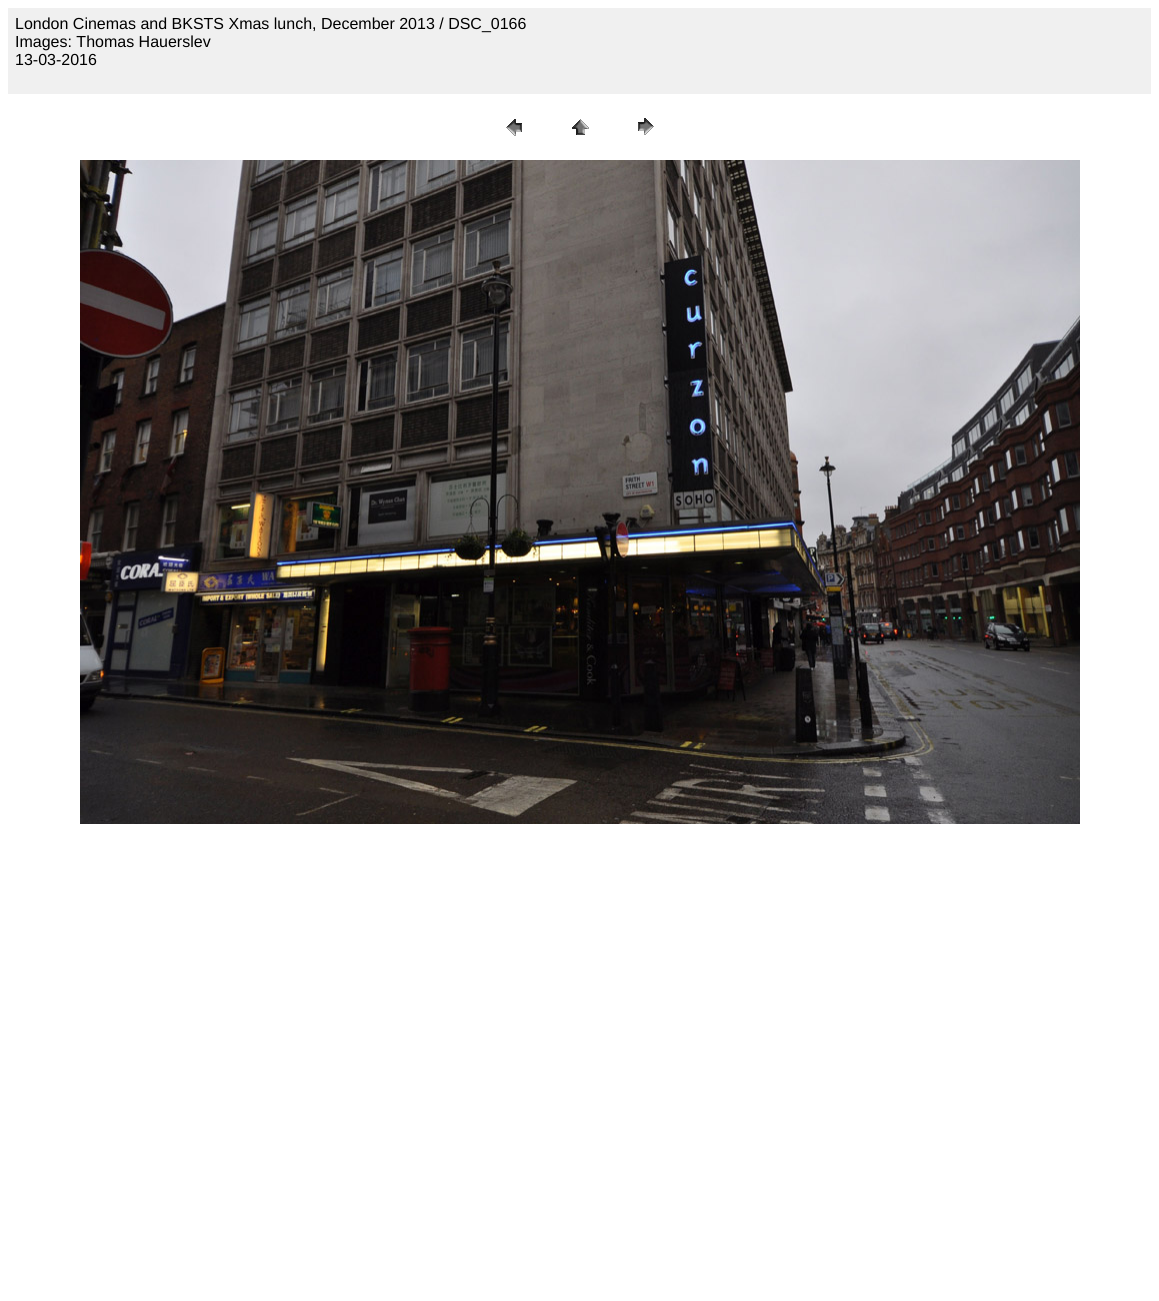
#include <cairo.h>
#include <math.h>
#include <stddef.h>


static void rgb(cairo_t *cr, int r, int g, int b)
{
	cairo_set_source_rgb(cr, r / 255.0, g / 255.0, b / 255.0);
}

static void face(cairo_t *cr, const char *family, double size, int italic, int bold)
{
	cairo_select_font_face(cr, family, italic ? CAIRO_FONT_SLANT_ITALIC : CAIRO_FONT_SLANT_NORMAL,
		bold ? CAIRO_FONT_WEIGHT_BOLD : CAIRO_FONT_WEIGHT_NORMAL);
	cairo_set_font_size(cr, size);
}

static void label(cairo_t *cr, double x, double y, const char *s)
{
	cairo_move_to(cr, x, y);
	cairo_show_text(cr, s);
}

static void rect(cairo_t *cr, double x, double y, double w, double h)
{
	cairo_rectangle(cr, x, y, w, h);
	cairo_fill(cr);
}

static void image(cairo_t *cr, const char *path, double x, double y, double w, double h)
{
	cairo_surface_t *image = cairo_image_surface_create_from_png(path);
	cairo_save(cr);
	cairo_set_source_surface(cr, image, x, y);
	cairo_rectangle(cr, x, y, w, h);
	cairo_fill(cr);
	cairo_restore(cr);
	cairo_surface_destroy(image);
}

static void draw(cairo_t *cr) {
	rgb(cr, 255, 255, 255);
	cairo_paint(cr);
	rgb(cr, 240, 240, 240);
	rect(cr, 8, 8, 1143, 86);
	face(cr, "Liberation Sans", 16, 0, 0);
	rgb(cr, 0, 0, 0);
	label(cr, 15, 29, "London Cinemas and BKSTS Xmas lunch, December 2013 / DSC_0166");
	label(cr, 15, 47, "Images: Thomas Hauerslev");
	label(cr, 15, 65, "13-03-2016");
	image(cr, "image0.png", 506, 119, 16, 17);
	image(cr, "image1.png", 572, 119, 17, 16);
	image(cr, "image2.png", 638, 118, 16, 17);
	image(cr, "image3.png", 80, 160, 1000, 664);
}

int main(void) {
	cairo_surface_t *surface = cairo_image_surface_create(CAIRO_FORMAT_RGB24, 1159, 1301);
	cairo_t *cr = cairo_create(surface);
	cairo_font_options_t *options = cairo_font_options_create();
	cairo_font_options_set_hint_metrics(options, CAIRO_HINT_METRICS_OFF);
	cairo_font_options_set_hint_style(options, CAIRO_HINT_STYLE_NONE);
	cairo_set_font_options(cr, options);
	cairo_set_miter_limit(cr, 4);
	draw(cr);
	cairo_surface_write_to_png(surface, "render.png");
	cairo_font_options_destroy(options);
	cairo_destroy(cr);
	cairo_surface_destroy(surface);
	return 0;
}
